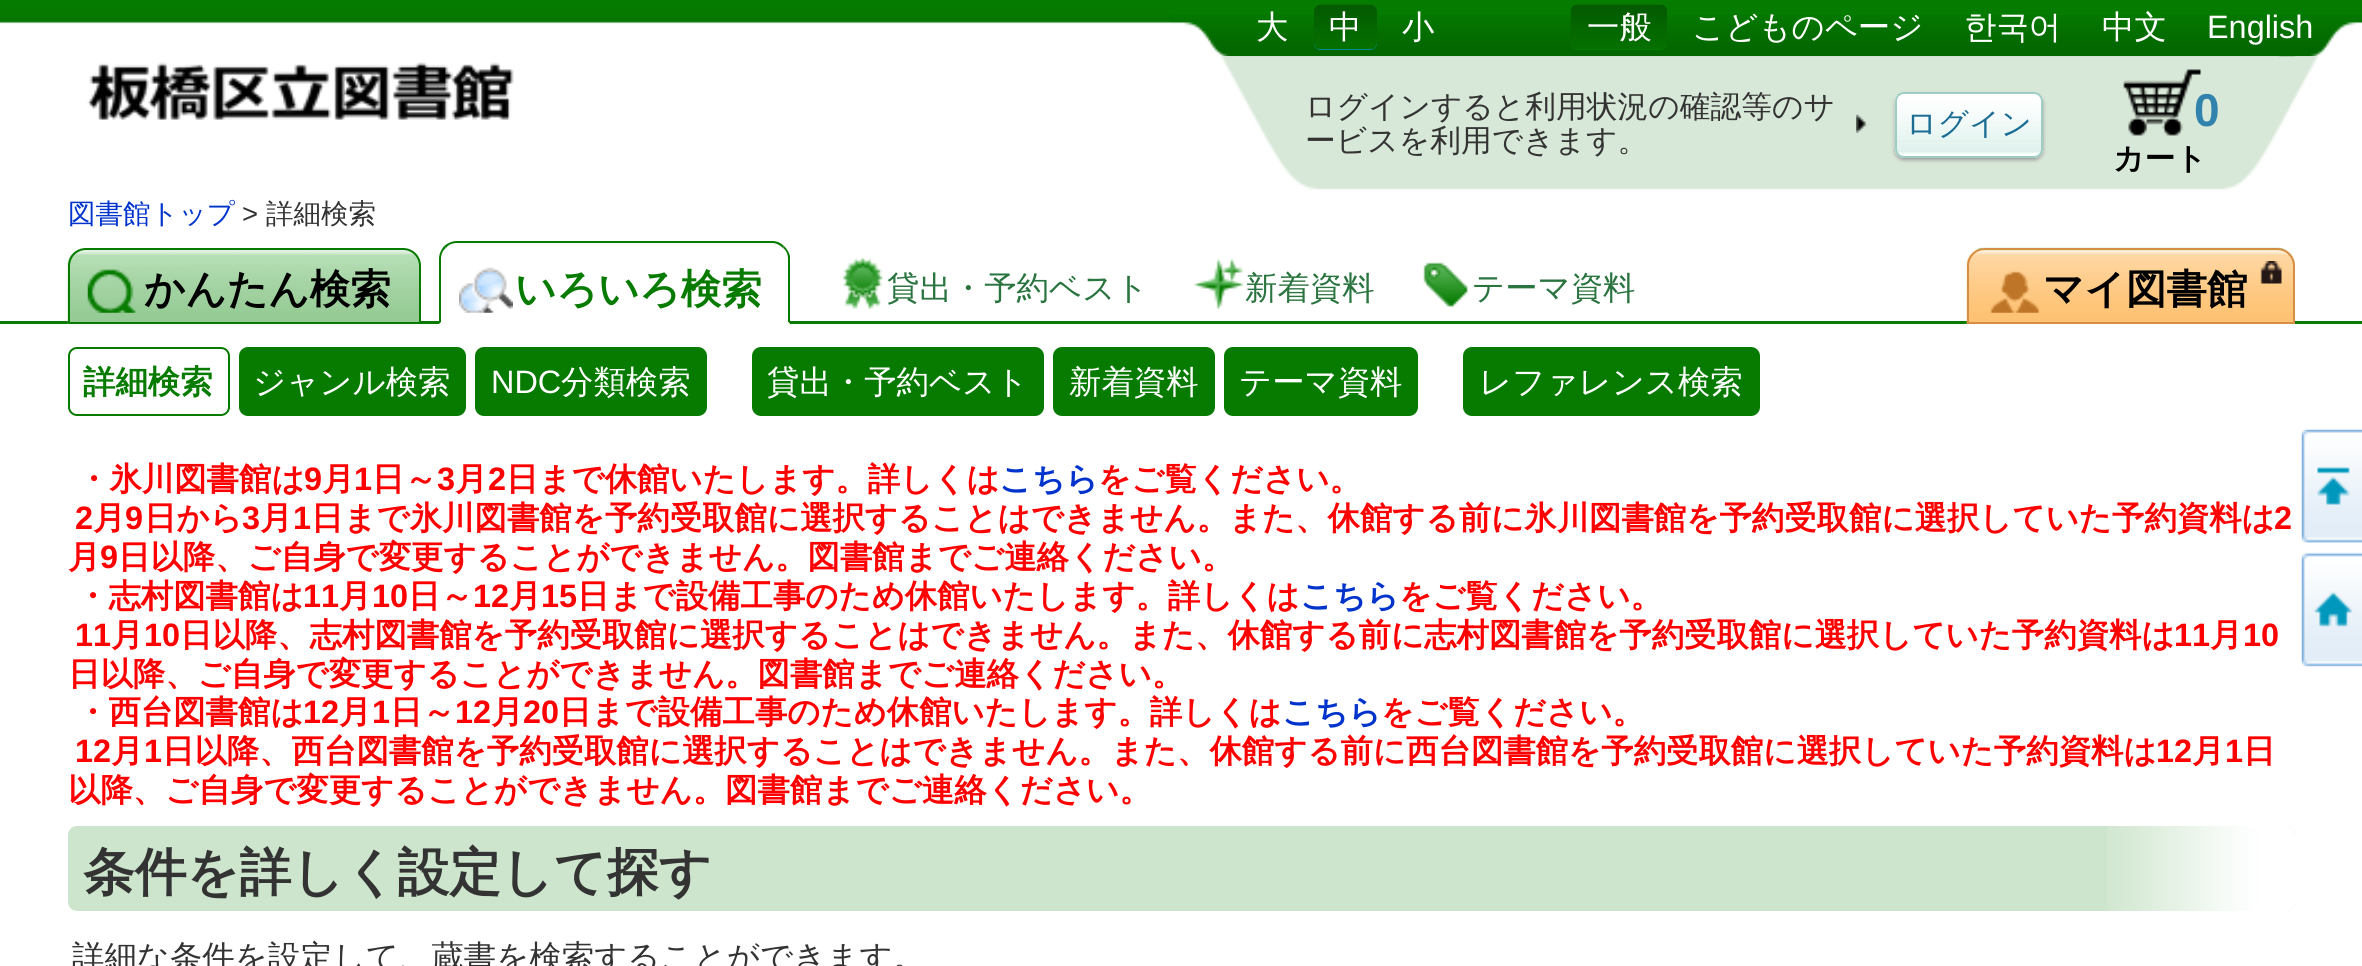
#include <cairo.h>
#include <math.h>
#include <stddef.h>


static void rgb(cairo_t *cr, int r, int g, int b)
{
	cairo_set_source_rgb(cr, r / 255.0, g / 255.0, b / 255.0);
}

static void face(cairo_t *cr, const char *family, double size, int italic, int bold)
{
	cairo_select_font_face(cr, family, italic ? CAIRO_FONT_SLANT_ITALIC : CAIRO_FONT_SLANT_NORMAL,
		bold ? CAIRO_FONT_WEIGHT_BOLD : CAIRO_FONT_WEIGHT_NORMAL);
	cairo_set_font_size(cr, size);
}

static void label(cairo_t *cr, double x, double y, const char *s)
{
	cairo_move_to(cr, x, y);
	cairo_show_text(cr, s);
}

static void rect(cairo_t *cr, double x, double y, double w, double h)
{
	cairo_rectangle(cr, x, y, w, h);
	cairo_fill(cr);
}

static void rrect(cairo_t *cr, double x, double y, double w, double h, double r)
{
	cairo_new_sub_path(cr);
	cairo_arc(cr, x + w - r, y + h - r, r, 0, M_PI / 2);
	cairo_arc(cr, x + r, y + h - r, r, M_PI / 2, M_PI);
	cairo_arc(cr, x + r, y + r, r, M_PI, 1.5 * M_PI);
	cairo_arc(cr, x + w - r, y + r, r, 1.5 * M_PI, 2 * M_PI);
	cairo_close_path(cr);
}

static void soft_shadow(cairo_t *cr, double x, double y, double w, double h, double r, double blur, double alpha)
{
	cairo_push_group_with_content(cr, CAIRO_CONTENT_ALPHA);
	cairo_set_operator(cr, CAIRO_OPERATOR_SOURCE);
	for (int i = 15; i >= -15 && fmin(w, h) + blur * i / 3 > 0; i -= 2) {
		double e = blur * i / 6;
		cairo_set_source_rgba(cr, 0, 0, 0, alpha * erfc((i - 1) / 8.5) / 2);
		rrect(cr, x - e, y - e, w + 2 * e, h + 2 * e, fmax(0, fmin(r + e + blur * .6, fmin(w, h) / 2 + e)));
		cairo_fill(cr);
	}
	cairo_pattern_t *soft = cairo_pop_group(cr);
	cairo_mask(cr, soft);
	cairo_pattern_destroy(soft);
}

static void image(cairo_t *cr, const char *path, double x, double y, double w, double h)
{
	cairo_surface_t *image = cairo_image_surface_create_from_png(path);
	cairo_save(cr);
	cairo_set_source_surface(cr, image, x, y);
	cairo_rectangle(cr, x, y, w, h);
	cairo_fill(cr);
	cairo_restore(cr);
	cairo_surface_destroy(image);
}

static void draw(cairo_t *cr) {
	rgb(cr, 255, 255, 255);
	cairo_paint(cr);
	image(cr, "image0.png", 0, 0, 1170, 24);
	rgb(cr, 5, 124, 0);
	rect(cr, 1170, 0, 1192, 15);
	image(cr, "image1.png", 1170, 15, 1192, 42);
	face(cr, "WenQuanYi Zen Hei Medium", 32.4, 0, 0);
	rgb(cr, 255, 255, 255);
	label(cr, 1256, 38, "大");
	rgb(cr, 0, 151, 190);
	rrect(cr, 1314, 5, 63, 45, 7);
	cairo_fill(cr);
	image(cr, "image2.png", 1314, 4, 63, 46);
	rgb(cr, 5, 124, 0);
	rrect(cr, 1571, 5, 96, 45, 7);
	cairo_fill(cr);
	image(cr, "image3.png", 1570, 4, 97, 45);
	rgb(cr, 255, 255, 255);
	label(cr, 2102, 38, "中文");
	label(cr, 1329, 38, "中");
	label(cr, 1402, 38, "小");
	label(cr, 1587, 38, "一般");
	label(cr, 1692, 38, "こどものページ");
	label(cr, 1964, 38, "한국어");
	face(cr, "Liberation Sans", 32.4, 0, 0);
	label(cr, 2207, 38, "English");
	image(cr, "image4.png", 2278, 56, 18, 1);
	image(cr, "image5.png", 87, 62, 427, 58);
	image(cr, "image6.png", 1170, 56, 1192, 135);
	image(cr, "image7.png", 1856, 114, 12, 19);
	face(cr, "WenQuanYi Zen Hei Medium", 30.75, 0, 0);
	rgb(cr, 51, 51, 51);
	label(cr, 1305, 117, "ログインすると利用状況の確認等のサ");
	label(cr, 1305, 151, "ービスを利用できます。");
	rgb(cr, 153, 153, 153);
	soft_shadow(cr, 1895, 95, 148, 65, 9, 2, 1);
	rgb(cr, 255, 255, 255);
	rrect(cr, 1895, 92, 148, 66, 9);
	cairo_fill(cr);
	image(cr, "image8.png", 1894, 94, 149, 61);
	rrect(cr, 1896, 93, 146, 64, 8);
	rgb(cr, 158, 205, 195);
	cairo_stroke(cr);
	rgb(cr, 27, 109, 147);
	label(cr, 1906, 134, "ログイン");
	image(cr, "image9.png", 2123, 69, 78, 67);
	face(cr, "Liberation Sans", 46, 0, 1);
	rgb(cr, 49, 131, 173);
	label(cr, 2194, 126, "0");
	face(cr, "WenQuanYi Zen Hei", 30.75, 0, 1);
	rgb(cr, 0, 0, 0);
	label(cr, 2113, 169, "カート");
	face(cr, "WenQuanYi Zen Hei Medium", 27.5, 0, 0);
	rgb(cr, 0, 51, 204);
	label(cr, 68, 223, "図書館トップ");
	face(cr, "Liberation Sans", 27.5, 0, 0);
	rgb(cr, 51, 51, 51);
	label(cr, 242, 223, ">");
	face(cr, "WenQuanYi Zen Hei Medium", 27.5, 0, 0);
	label(cr, 266, 223, "詳細検索");
	rgb(cr, 6, 123, 0);
	rect(cr, 0, 321, 2362, 3);
	image(cr, "image10.png", 67, 249, 354, 75);
	cairo_new_path(cr);
	cairo_move_to(cr, 86, 249);
	cairo_line_to(cr, 403, 249);
	cairo_curve_to(cr, 412.5, 249, 420, 256.5, 420, 266);
	cairo_line_to(cr, 420, 323);
	cairo_line_to(cr, 69, 323);
	cairo_line_to(cr, 69, 266);
	cairo_curve_to(cr, 69, 256.5, 76.5, 249, 86, 249);
	cairo_close_path(cr);
	cairo_stroke(cr);
	image(cr, "image11.png", 87, 269, 50, 44);
	face(cr, "WenQuanYi Zen Hei", 40.5, 0, 1);
	rgb(cr, 0, 0, 0);
	label(cr, 144, 303, "かんたん検索");
	rgb(cr, 255, 255, 255);
	cairo_new_path(cr);
	cairo_move_to(cr, 457, 241);
	cairo_line_to(cr, 772, 241);
	cairo_curve_to(cr, 782, 241, 790, 249, 790, 259);
	cairo_line_to(cr, 790, 324);
	cairo_line_to(cr, 439, 324);
	cairo_line_to(cr, 439, 259);
	cairo_curve_to(cr, 439, 249, 447, 241, 457, 241);
	cairo_close_path(cr);
	cairo_fill(cr);
	rgb(cr, 6, 123, 0);
	cairo_new_path(cr);
	cairo_move_to(cr, 457, 241);
	cairo_curve_to(cr, 452, 241, 448, 243, 444, 246);
	cairo_line_to(cr, 446, 248);
	cairo_curve_to(cr, 448, 245, 452, 243, 457, 243);
	cairo_line_to(cr, 772, 243);
	cairo_curve_to(cr, 776, 243, 780, 245, 783, 248);
	cairo_line_to(cr, 784, 246);
	cairo_curve_to(cr, 781, 243, 777, 241, 772, 241);
	cairo_close_path(cr);
	cairo_fill(cr);
	cairo_new_path(cr);
	cairo_move_to(cr, 784, 246);
	cairo_curve_to(cr, 787, 249, 789, 252, 790, 256);
	cairo_line_to(cr, 790, 324);
	cairo_line_to(cr, 788, 322);
	cairo_line_to(cr, 788, 259);
	cairo_curve_to(cr, 788, 254, 786, 250, 783, 248);
	cairo_close_path(cr);
	cairo_fill(cr);
	rgb(cr, 255, 255, 255);
	cairo_new_path(cr);
	cairo_move_to(cr, 790, 324);
	cairo_line_to(cr, 788, 322);
	cairo_line_to(cr, 441, 322);
	cairo_line_to(cr, 439, 324);
	cairo_close_path(cr);
	cairo_fill(cr);
	rgb(cr, 6, 123, 0);
	cairo_new_path(cr);
	cairo_move_to(cr, 444, 246);
	cairo_curve_to(cr, 441, 250, 439, 254, 439, 259);
	cairo_line_to(cr, 439, 324);
	cairo_line_to(cr, 441, 322);
	cairo_line_to(cr, 441, 259);
	cairo_curve_to(cr, 441, 254, 443, 250, 446, 248);
	cairo_close_path(cr);
	cairo_fill(cr);
	image(cr, "image12.png", 459, 267, 54, 46);
	label(cr, 515, 303, "いろいろ検索");
	image(cr, "image13.png", 843, 258, 40, 51);
	face(cr, "WenQuanYi Zen Hei Medium", 32.4, 0, 0);
	rgb(cr, 42, 116, 63);
	label(cr, 887, 299, "貸出・予約ベスト");
	image(cr, "image14.png", 1194, 258, 50, 51);
	label(cr, 1245, 299, "新着資料");
	image(cr, "image15.png", 1423, 262, 45, 45);
	label(cr, 1472, 299, "テーマ資料");
	image(cr, "image16.png", 1966, 247, 329, 77);
	cairo_new_path(cr);
	cairo_move_to(cr, 1985, 249);
	cairo_line_to(cr, 2277, 249);
	cairo_curve_to(cr, 2286.5, 249, 2294, 256.5, 2294, 266);
	cairo_line_to(cr, 2294, 323);
	cairo_line_to(cr, 1968, 323);
	cairo_line_to(cr, 1968, 266);
	cairo_curve_to(cr, 1968, 256.5, 1975.5, 249, 1985, 249);
	cairo_close_path(cr);
	rgb(cr, 213, 142, 67);
	cairo_stroke(cr);
	image(cr, "image17.png", 1990, 271, 50, 42);
	face(cr, "WenQuanYi Zen Hei", 40.5, 0, 1);
	rgb(cr, 0, 0, 0);
	label(cr, 2043, 303, "マイ図書館");
	image(cr, "image18.png", 2260, 261, 22, 23);
	rrect(cr, 69, 348, 160, 67, 8);
	rgb(cr, 6, 123, 0);
	cairo_stroke(cr);
	face(cr, "WenQuanYi Zen Hei", 32.4, 0, 1);
	label(cr, 83, 393, "詳細検索");
	rrect(cr, 240, 348, 225, 67, 8);
	cairo_fill_preserve(cr);
	cairo_stroke(cr);
	face(cr, "WenQuanYi Zen Hei Medium", 32.4, 0, 0);
	rgb(cr, 255, 255, 255);
	label(cr, 253, 393, "ジャンル検索");
	rgb(cr, 6, 123, 0);
	rrect(cr, 476, 348, 230, 67, 8);
	cairo_fill_preserve(cr);
	cairo_stroke(cr);
	face(cr, "Liberation Sans", 32.4, 0, 0);
	rgb(cr, 255, 255, 255);
	label(cr, 491, 393, "NDC");
	face(cr, "WenQuanYi Zen Hei Medium", 32.4, 0, 0);
	label(cr, 561, 393, "分類検索");
	rgb(cr, 6, 123, 0);
	rrect(cr, 753, 348, 290, 67, 8);
	cairo_fill_preserve(cr);
	cairo_stroke(cr);
	rgb(cr, 255, 255, 255);
	label(cr, 767, 393, "貸出・予約ベスト");
	rgb(cr, 6, 123, 0);
	rrect(cr, 1054, 348, 160, 67, 8);
	cairo_fill_preserve(cr);
	cairo_stroke(cr);
	rgb(cr, 255, 255, 255);
	label(cr, 1069, 393, "新着資料");
	rgb(cr, 6, 123, 0);
	rrect(cr, 1225, 348, 192, 67, 8);
	cairo_fill_preserve(cr);
	cairo_stroke(cr);
	rgb(cr, 255, 255, 255);
	label(cr, 1239, 393, "テーマ資料");
	rgb(cr, 6, 123, 0);
	rrect(cr, 1464, 348, 295, 67, 8);
	cairo_fill_preserve(cr);
	cairo_stroke(cr);
	rgb(cr, 255, 255, 255);
	label(cr, 1479, 393, "レファレンス検索");
	face(cr, "WenQuanYi Zen Hei", 32.4, 0, 1);
	rgb(cr, 255, 0, 0);
	label(cr, 77, 490, "・氷川図書館は");
	face(cr, "Liberation Sans", 32.4, 0, 1);
	label(cr, 304, 490, "9");
	face(cr, "WenQuanYi Zen Hei", 32.4, 0, 1);
	label(cr, 322, 490, "月");
	face(cr, "Liberation Sans", 32.4, 0, 1);
	label(cr, 354, 490, "1");
	face(cr, "WenQuanYi Zen Hei", 32.4, 0, 1);
	label(cr, 372, 490, "日～");
	face(cr, "Liberation Sans", 32.4, 0, 1);
	label(cr, 437, 490, "3");
	face(cr, "WenQuanYi Zen Hei", 32.4, 0, 1);
	label(cr, 455, 490, "月");
	face(cr, "Liberation Sans", 32.4, 0, 1);
	label(cr, 488, 490, "2");
	face(cr, "WenQuanYi Zen Hei", 32.4, 0, 1);
	label(cr, 506, 490, "日まで休館いたします。詳しくは");
	rgb(cr, 0, 51, 204);
	label(cr, 999, 490, "こちら");
	rgb(cr, 255, 0, 0);
	label(cr, 1098, 490, "をご覧ください。");
	face(cr, "Liberation Sans", 32.4, 0, 1);
	label(cr, 75, 529, "2");
	face(cr, "WenQuanYi Zen Hei", 32.4, 0, 1);
	label(cr, 93, 529, "月");
	face(cr, "Liberation Sans", 32.4, 0, 1);
	label(cr, 125, 529, "9");
	face(cr, "WenQuanYi Zen Hei", 32.4, 0, 1);
	label(cr, 144, 529, "日から");
	face(cr, "Liberation Sans", 32.4, 0, 1);
	label(cr, 242, 529, "3");
	face(cr, "WenQuanYi Zen Hei", 32.4, 0, 1);
	label(cr, 260, 529, "月");
	face(cr, "Liberation Sans", 32.4, 0, 1);
	label(cr, 293, 529, "1");
	face(cr, "WenQuanYi Zen Hei", 32.4, 0, 1);
	label(cr, 311, 529, "日まで氷川図書館を予約受取館に選択することはできません。また、休館する前に氷川図書館を予約受取館に選択していた予約資料は");
	face(cr, "Liberation Sans", 32.4, 0, 1);
	label(cr, 2274, 529, "2");
	face(cr, "WenQuanYi Zen Hei", 32.4, 0, 1);
	label(cr, 68, 568, "月");
	face(cr, "Liberation Sans", 32.4, 0, 1);
	label(cr, 100, 568, "9");
	face(cr, "WenQuanYi Zen Hei", 32.4, 0, 1);
	label(cr, 118, 568, "日以降、ご自身で変更することができません。図書館までご連絡ください。");
	label(cr, 76, 607, "・志村図書館は");
	face(cr, "Liberation Sans", 32.4, 0, 1);
	label(cr, 303, 607, "11");
	face(cr, "WenQuanYi Zen Hei", 32.4, 0, 1);
	label(cr, 339, 607, "月");
	face(cr, "Liberation Sans", 32.4, 0, 1);
	label(cr, 372, 607, "10");
	face(cr, "WenQuanYi Zen Hei", 32.4, 0, 1);
	label(cr, 408, 607, "日～");
	face(cr, "Liberation Sans", 32.4, 0, 1);
	label(cr, 473, 607, "12");
	face(cr, "WenQuanYi Zen Hei", 32.4, 0, 1);
	label(cr, 509, 607, "月");
	face(cr, "Liberation Sans", 32.4, 0, 1);
	label(cr, 541, 607, "15");
	face(cr, "WenQuanYi Zen Hei", 32.4, 0, 1);
	label(cr, 577, 607, "日まで設備工事のため休館いたします。詳しくは");
	rgb(cr, 0, 51, 204);
	label(cr, 1300, 607, "こちら");
	rgb(cr, 255, 0, 0);
	label(cr, 1399, 607, "をご覧ください。");
	face(cr, "Liberation Sans", 32.4, 0, 1);
	label(cr, 75, 646, "11");
	face(cr, "WenQuanYi Zen Hei", 32.4, 0, 1);
	label(cr, 111, 646, "月");
	face(cr, "Liberation Sans", 32.4, 0, 1);
	label(cr, 144, 646, "10");
	face(cr, "WenQuanYi Zen Hei", 32.4, 0, 1);
	label(cr, 180, 646, "日以降、志村図書館を予約受取館に選択することはできません。また、休館する前に志村図書館を予約受取館に選択していた予約資料は");
	face(cr, "Liberation Sans", 32.4, 0, 1);
	label(cr, 2174, 646, "11");
	face(cr, "WenQuanYi Zen Hei", 32.4, 0, 1);
	label(cr, 2210, 646, "月");
	face(cr, "Liberation Sans", 32.4, 0, 1);
	label(cr, 2243, 646, "10");
	face(cr, "WenQuanYi Zen Hei", 32.4, 0, 1);
	label(cr, 68, 685, "日以降、ご自身で変更することができません。図書館までご連絡ください。");
	label(cr, 76, 723, "・西台図書館は");
	face(cr, "Liberation Sans", 32.4, 0, 1);
	label(cr, 303, 723, "12");
	face(cr, "WenQuanYi Zen Hei", 32.4, 0, 1);
	label(cr, 339, 723, "月");
	face(cr, "Liberation Sans", 32.4, 0, 1);
	label(cr, 372, 723, "1");
	face(cr, "WenQuanYi Zen Hei", 32.4, 0, 1);
	label(cr, 390, 723, "日～");
	face(cr, "Liberation Sans", 32.4, 0, 1);
	label(cr, 455, 723, "12");
	face(cr, "WenQuanYi Zen Hei", 32.4, 0, 1);
	label(cr, 491, 723, "月");
	face(cr, "Liberation Sans", 32.4, 0, 1);
	label(cr, 523, 723, "20");
	face(cr, "WenQuanYi Zen Hei", 32.4, 0, 1);
	label(cr, 559, 723, "日まで設備工事のため休館いたします。詳しくは");
	rgb(cr, 0, 51, 204);
	label(cr, 1282, 723, "こちら");
	rgb(cr, 255, 0, 0);
	label(cr, 1381, 723, "をご覧ください。");
	face(cr, "Liberation Sans", 32.4, 0, 1);
	label(cr, 75, 762, "12");
	face(cr, "WenQuanYi Zen Hei", 32.4, 0, 1);
	label(cr, 111, 762, "月");
	face(cr, "Liberation Sans", 32.4, 0, 1);
	label(cr, 144, 762, "1");
	face(cr, "WenQuanYi Zen Hei", 32.4, 0, 1);
	label(cr, 162, 762, "日以降、西台図書館を予約受取館に選択することはできません。また、休館する前に西台図書館を予約受取館に選択していた予約資料は");
	face(cr, "Liberation Sans", 32.4, 0, 1);
	label(cr, 2156, 762, "12");
	face(cr, "WenQuanYi Zen Hei", 32.4, 0, 1);
	label(cr, 2192, 762, "月");
	face(cr, "Liberation Sans", 32.4, 0, 1);
	label(cr, 2225, 762, "1");
	face(cr, "WenQuanYi Zen Hei", 32.4, 0, 1);
	label(cr, 2243, 762, "日");
	label(cr, 68, 801, "以降、ご自身で変更することができません。図書館までご連絡ください。");
	image(cr, "image19.png", 2301, 429, 61, 114);
	image(cr, "image20.png", 2301, 552, 61, 115);
	rgb(cr, 205, 229, 204);
	rrect(cr, 68, 826, 2227, 85, 9);
	cairo_fill(cr);
	image(cr, "image21.png", 2107, 826, 188, 85);
	face(cr, "WenQuanYi Zen Hei", 51.8, 0, 1);
	rgb(cr, 51, 51, 51);
	label(cr, 83, 890, "条件を詳しく設定して探す");
	face(cr, "WenQuanYi Zen Hei Medium", 32.4, 0, 0);
	label(cr, 72, 968, "詳細な条件を設定して、蔵書を検索することができます。");
}

int main(void) {
	cairo_surface_t *surface = cairo_image_surface_create(CAIRO_FORMAT_RGB24, 2362, 966);
	cairo_t *cr = cairo_create(surface);
	cairo_font_options_t *options = cairo_font_options_create();
	cairo_font_options_set_hint_metrics(options, CAIRO_HINT_METRICS_OFF);
	cairo_font_options_set_hint_style(options, CAIRO_HINT_STYLE_NONE);
	cairo_set_font_options(cr, options);
	cairo_set_miter_limit(cr, 4);
	draw(cr);
	cairo_surface_write_to_png(surface, "render.png");
	cairo_font_options_destroy(options);
	cairo_destroy(cr);
	cairo_surface_destroy(surface);
	return 0;
}
